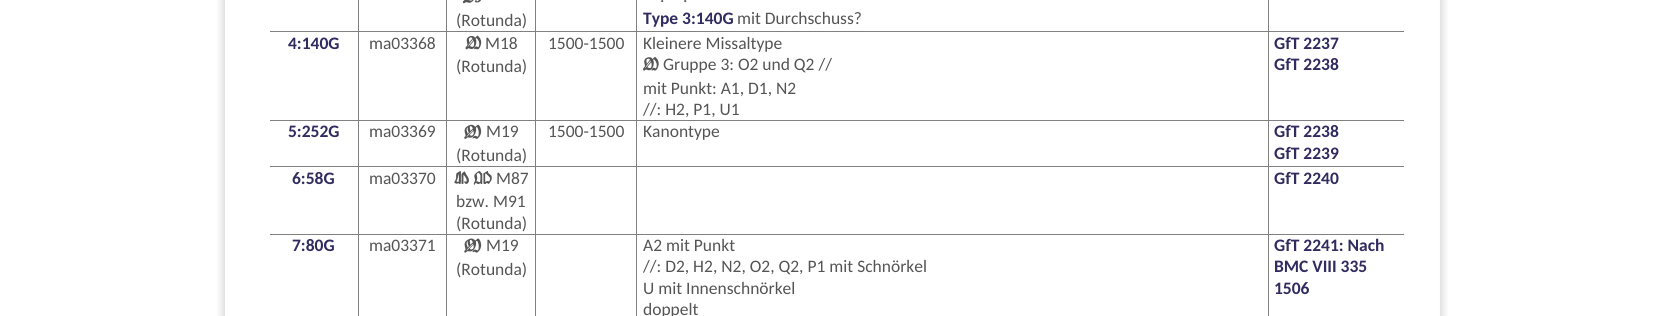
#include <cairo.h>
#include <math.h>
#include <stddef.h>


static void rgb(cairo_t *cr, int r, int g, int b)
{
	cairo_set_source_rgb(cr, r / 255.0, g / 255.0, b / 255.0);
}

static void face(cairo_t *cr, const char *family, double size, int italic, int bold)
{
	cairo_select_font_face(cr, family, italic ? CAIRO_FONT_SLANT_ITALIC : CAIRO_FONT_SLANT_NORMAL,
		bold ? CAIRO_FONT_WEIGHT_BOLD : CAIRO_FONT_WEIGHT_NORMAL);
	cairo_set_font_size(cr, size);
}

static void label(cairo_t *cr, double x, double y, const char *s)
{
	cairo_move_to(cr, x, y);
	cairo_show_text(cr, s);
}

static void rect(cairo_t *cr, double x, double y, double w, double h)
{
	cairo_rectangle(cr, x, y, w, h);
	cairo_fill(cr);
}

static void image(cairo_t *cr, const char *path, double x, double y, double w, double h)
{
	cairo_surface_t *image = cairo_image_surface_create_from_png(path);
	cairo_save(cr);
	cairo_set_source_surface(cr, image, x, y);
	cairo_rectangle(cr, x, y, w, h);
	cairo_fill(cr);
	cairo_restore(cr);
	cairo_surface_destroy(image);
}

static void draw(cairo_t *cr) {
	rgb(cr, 255, 255, 255);
	cairo_paint(cr);
	image(cr, "image0.png", 217, 0, 1231, 316);
	rgb(cr, 255, 255, 255);
	rect(cr, 225, 0, 1, 316);
	rgb(cr, 128, 128, 128);
	rect(cr, 1268, 234, 1, 82);
	rect(cr, 1268, 234, 136, 1);
	rect(cr, 1268, 166, 1, 69);
	rect(cr, 1268, 166, 136, 1);
	rect(cr, 1268, 120, 1, 48);
	rect(cr, 1268, 120, 136, 1);
	rect(cr, 1268, 31, 1, 90);
	rect(cr, 1268, 31, 136, 1);
	rect(cr, 1268, 0, 1, 33);
	rect(cr, 636, 234, 1, 82);
	rect(cr, 636, 234, 633, 1);
	rect(cr, 636, 166, 1, 69);
	rect(cr, 636, 166, 633, 1);
	rect(cr, 636, 120, 1, 48);
	rect(cr, 636, 120, 633, 1);
	rect(cr, 636, 31, 1, 90);
	rect(cr, 636, 31, 633, 1);
	rect(cr, 636, 0, 1, 33);
	rect(cr, 535, 234, 1, 82);
	rect(cr, 535, 234, 103, 1);
	rect(cr, 535, 166, 1, 69);
	rect(cr, 535, 166, 103, 1);
	rect(cr, 535, 120, 1, 48);
	rect(cr, 535, 120, 103, 1);
	rect(cr, 535, 31, 1, 90);
	rect(cr, 535, 31, 103, 1);
	rect(cr, 535, 0, 1, 33);
	rect(cr, 446, 234, 1, 82);
	rect(cr, 446, 234, 90, 1);
	rect(cr, 446, 166, 1, 69);
	rect(cr, 446, 166, 90, 1);
	rect(cr, 446, 120, 1, 48);
	rect(cr, 446, 120, 90, 1);
	rect(cr, 446, 31, 1, 90);
	rect(cr, 446, 31, 90, 1);
	rect(cr, 446, 0, 1, 33);
	rect(cr, 358, 234, 1, 82);
	rect(cr, 358, 234, 90, 1);
	rect(cr, 358, 166, 1, 69);
	rect(cr, 358, 166, 90, 1);
	rect(cr, 358, 120, 1, 48);
	rect(cr, 358, 120, 90, 1);
	rect(cr, 358, 31, 1, 90);
	rect(cr, 358, 31, 90, 1);
	rect(cr, 358, 0, 1, 33);
	rect(cr, 270, 31, 89, 1);
	image(cr, "image1.png", 462, 0, 19, 4);
	face(cr, "Carlito", 17.5, 0, 0);
	rgb(cr, 85, 85, 85);
	label(cr, 456, 26, "(Rotunda)");
	label(cr, 660, 2, ".");
	label(cr, 683, 2, ".");
	face(cr, "Carlito", 17.5, 0, 1);
	rgb(cr, 49, 43, 95);
	label(cr, 643, 24, "Type 3:140G");
	face(cr, "Carlito", 17.5, 0, 0);
	rgb(cr, 85, 85, 85);
	label(cr, 737, 24, "mit Durchschuss?");
	rgb(cr, 128, 128, 128);
	rect(cr, 270, 120, 89, 1);
	face(cr, "Carlito", 17.5, 0, 1);
	rgb(cr, 49, 43, 95);
	label(cr, 288, 49, "4:140G");
	face(cr, "Carlito", 17.5, 0, 0);
	rgb(cr, 85, 85, 85);
	label(cr, 369, 49, "ma03368");
	image(cr, "image2.png", 465, 35, 17, 15);
	label(cr, 485, 49, "M18");
	label(cr, 456, 72, "(Rotunda)");
	label(cr, 548, 49, "1500-1500");
	label(cr, 643, 49, "Kleinere Missaltype");
	image(cr, "image3.png", 643, 56, 16, 15);
	label(cr, 663, 70, "Gruppe 3: O2 und Q2 //");
	label(cr, 643, 94, "mit Punkt: A1, D1, N2");
	label(cr, 643, 115, "//: H2, P1, U1");
	face(cr, "Carlito", 17.5, 0, 1);
	rgb(cr, 49, 43, 95);
	label(cr, 1274, 49, "GfT 2237");
	label(cr, 1274, 70, "GfT 2238");
	rgb(cr, 128, 128, 128);
	rect(cr, 270, 166, 89, 1);
	rgb(cr, 49, 43, 95);
	label(cr, 288, 137, "5:252G");
	face(cr, "Carlito", 17.5, 0, 0);
	rgb(cr, 85, 85, 85);
	label(cr, 369, 137, "ma03369");
	image(cr, "image4.png", 464, 124, 18, 15);
	label(cr, 486, 137, "M19");
	label(cr, 456, 161, "(Rotunda)");
	label(cr, 548, 137, "1500-1500");
	label(cr, 643, 137, "Kanontype");
	face(cr, "Carlito", 17.5, 0, 1);
	rgb(cr, 49, 43, 95);
	label(cr, 1274, 137, "GfT 2238");
	label(cr, 1274, 159, "GfT 2239");
	rgb(cr, 128, 128, 128);
	rect(cr, 270, 234, 89, 1);
	rgb(cr, 49, 43, 95);
	label(cr, 292, 184, "6:58G");
	face(cr, "Carlito", 17.5, 0, 0);
	rgb(cr, 85, 85, 85);
	label(cr, 369, 184, "ma03370");
	image(cr, "image5.png", 454, 171, 38, 14);
	label(cr, 496, 184, "M87");
	label(cr, 456, 207, "bzw. M91");
	label(cr, 456, 229, "(Rotunda)");
	face(cr, "Carlito", 17.5, 0, 1);
	rgb(cr, 49, 43, 95);
	label(cr, 1274, 184, "GfT 2240");
	label(cr, 292, 251, "7:80G");
	face(cr, "Carlito", 17.5, 0, 0);
	rgb(cr, 85, 85, 85);
	label(cr, 369, 251, "ma03371");
	image(cr, "image6.png", 464, 238, 18, 15);
	label(cr, 486, 251, "M19");
	label(cr, 456, 275, "(Rotunda)");
	label(cr, 643, 251, "A2 mit Punkt");
	label(cr, 643, 272, "//: D2, H2, N2, O2, Q2, P1 mit Schnörkel");
	label(cr, 643, 294, "U mit Innenschnörkel");
	label(cr, 643, 315, "doppelt");
	face(cr, "Carlito", 17.5, 0, 1);
	rgb(cr, 49, 43, 95);
	label(cr, 1274, 251, "GfT 2241: Nach");
	label(cr, 1274, 272, "BMC VIII 335");
	label(cr, 1274, 294, "1506");
}

int main(void) {
	cairo_surface_t *surface = cairo_image_surface_create(CAIRO_FORMAT_RGB24, 1665, 316);
	cairo_t *cr = cairo_create(surface);
	cairo_font_options_t *options = cairo_font_options_create();
	cairo_font_options_set_hint_metrics(options, CAIRO_HINT_METRICS_OFF);
	cairo_font_options_set_hint_style(options, CAIRO_HINT_STYLE_NONE);
	cairo_set_font_options(cr, options);
	cairo_set_miter_limit(cr, 4);
	draw(cr);
	cairo_surface_write_to_png(surface, "render.png");
	cairo_font_options_destroy(options);
	cairo_destroy(cr);
	cairo_surface_destroy(surface);
	return 0;
}
